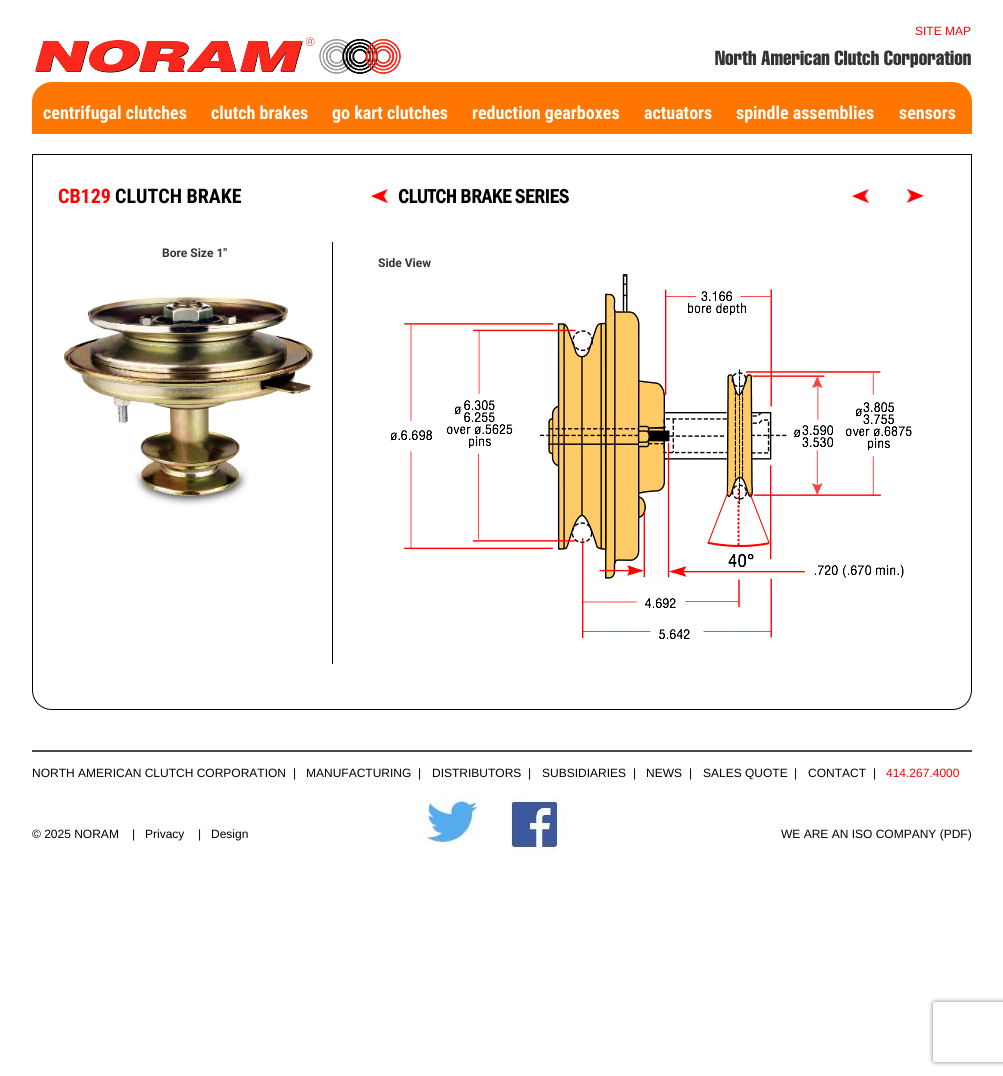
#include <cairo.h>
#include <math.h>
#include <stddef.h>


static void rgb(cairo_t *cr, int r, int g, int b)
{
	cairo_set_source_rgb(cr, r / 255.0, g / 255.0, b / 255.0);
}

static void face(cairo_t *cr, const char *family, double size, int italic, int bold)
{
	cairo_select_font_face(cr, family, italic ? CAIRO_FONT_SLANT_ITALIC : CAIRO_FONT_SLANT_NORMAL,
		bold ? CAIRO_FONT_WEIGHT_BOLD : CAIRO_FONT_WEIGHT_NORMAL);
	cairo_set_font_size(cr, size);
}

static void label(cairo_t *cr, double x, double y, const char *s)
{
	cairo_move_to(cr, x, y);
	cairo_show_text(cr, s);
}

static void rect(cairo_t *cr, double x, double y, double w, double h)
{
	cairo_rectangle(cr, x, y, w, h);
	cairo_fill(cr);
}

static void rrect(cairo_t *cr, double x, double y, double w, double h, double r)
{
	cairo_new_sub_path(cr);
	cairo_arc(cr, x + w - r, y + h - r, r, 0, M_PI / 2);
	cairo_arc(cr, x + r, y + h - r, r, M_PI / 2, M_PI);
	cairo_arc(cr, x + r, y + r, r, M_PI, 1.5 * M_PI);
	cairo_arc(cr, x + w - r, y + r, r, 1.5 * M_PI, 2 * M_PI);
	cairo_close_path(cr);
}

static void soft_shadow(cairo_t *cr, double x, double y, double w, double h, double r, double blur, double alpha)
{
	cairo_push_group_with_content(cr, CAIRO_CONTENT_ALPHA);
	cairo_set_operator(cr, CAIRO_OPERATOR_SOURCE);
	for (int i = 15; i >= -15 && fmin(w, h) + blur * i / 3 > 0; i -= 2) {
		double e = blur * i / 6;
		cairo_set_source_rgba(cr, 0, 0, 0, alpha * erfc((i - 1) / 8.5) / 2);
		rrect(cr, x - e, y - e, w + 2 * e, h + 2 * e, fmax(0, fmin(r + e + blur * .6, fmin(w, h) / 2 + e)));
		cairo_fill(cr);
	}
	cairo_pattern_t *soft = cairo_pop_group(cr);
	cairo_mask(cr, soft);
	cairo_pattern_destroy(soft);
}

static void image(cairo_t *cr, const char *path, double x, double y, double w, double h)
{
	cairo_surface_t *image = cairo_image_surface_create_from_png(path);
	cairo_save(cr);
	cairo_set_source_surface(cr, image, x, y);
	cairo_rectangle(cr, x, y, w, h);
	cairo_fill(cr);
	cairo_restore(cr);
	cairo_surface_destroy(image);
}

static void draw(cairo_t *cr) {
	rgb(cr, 255, 255, 255);
	cairo_paint(cr);
	image(cr, "image0.png", 35, 37, 366, 37);
	face(cr, "Liberation Sans", 12, 0, 0);
	rgb(cr, 255, 0, 0);
	label(cr, 915, 35, "SITE MAP");
	face(cr, "Helvetica", 20, 0, 0);
	rgb(cr, 51, 51, 51);
	label(cr, 715, 65, "North American Clutch Corporation");
	rgb(cr, 255, 119, 0);
	cairo_new_path(cr);
	cairo_move_to(cr, 52, 82);
	cairo_line_to(cr, 952, 82);
	cairo_curve_to(cr, 963, 82, 972, 91, 972, 102);
	cairo_line_to(cr, 972, 134);
	cairo_line_to(cr, 32, 134);
	cairo_line_to(cr, 32, 102);
	cairo_curve_to(cr, 32, 91, 41, 82, 52, 82);
	cairo_close_path(cr);
	cairo_fill(cr);
	face(cr, "Roboto Condensed", 18, 0, 1);
	rgb(cr, 255, 255, 255);
	label(cr, 43, 119, "centrifugal clutches");
	label(cr, 211, 119, "clutch brakes");
	label(cr, 332, 119, "go kart clutches");
	label(cr, 472, 119, "reduction gearboxes");
	label(cr, 644, 119, "actuators");
	label(cr, 736, 119, "spindle assemblies");
	label(cr, 899, 119, "sensors");
	cairo_new_path(cr);
	cairo_move_to(cr, 32.5, 154.5);
	cairo_line_to(cr, 971.5, 154.5);
	cairo_line_to(cr, 971.5, 690);
	cairo_curve_to(cr, 971.5, 701, 963, 709.5, 952, 709.5);
	cairo_line_to(cr, 52, 709.5);
	cairo_curve_to(cr, 41, 709.5, 32.5, 701, 32.5, 690);
	cairo_close_path(cr);
	rgb(cr, 0, 0, 0);
	cairo_set_line_width(cr, 1);
	cairo_stroke(cr);
	face(cr, "Roboto Condensed", 20, 0, 1);
	rgb(cr, 255, 0, 0);
	label(cr, 58, 203, "CB129");
	rgb(cr, 0, 0, 0);
	label(cr, 115, 203, "CLUTCH BRAKE");
	image(cr, "image1.png", 370, 189, 18, 15);
	face(cr, "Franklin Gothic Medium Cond", 20, 0, 1);
	label(cr, 398, 203, "CLUTCH BRAKE SERIES");
	image(cr, "image1.png", 851, 189, 18, 15);
	image(cr, "image2.png", 906, 188, 18, 15);
	rect(cr, 332, 242, 1, 422);
	face(cr, "Roboto", 12, 0, 1);
	rgb(cr, 51, 51, 51);
	label(cr, 162, 257, "Bore Size 1″");
	image(cr, "image3.png", 63, 296, 251, 211);
	label(cr, 378, 267, "Side View");
	image(cr, "image4.png", 391, 274, 521, 365);
	rgb(cr, 74, 74, 74);
	rect(cr, 32, 750, 940, 2);
	face(cr, "Liberation Sans", 12, 0, 0);
	rgb(cr, 0, 0, 0);
	label(cr, 32, 777, "NORTH AMERICAN CLUTCH CORPORATION");
	label(cr, 293, 777, "|");
	label(cr, 306, 777, "MANUFACTURING");
	label(cr, 418, 777, "|");
	label(cr, 432, 777, "DISTRIBUTORS");
	label(cr, 528, 777, "|");
	label(cr, 542, 777, "SUBSIDIARIES");
	label(cr, 633, 777, "|");
	label(cr, 646, 777, "NEWS");
	label(cr, 689, 777, "|");
	label(cr, 703, 777, "SALES QUOTE");
	label(cr, 794, 777, "|");
	label(cr, 808, 777, "CONTACT");
	label(cr, 873, 777, "|");
	rgb(cr, 255, 0, 0);
	label(cr, 886, 777, "414.267.4000");
	rgb(cr, 0, 0, 0);
	label(cr, 32, 838, "© 2025 NORAM");
	label(cr, 132, 838, "|");
	label(cr, 145, 838, "Privacy");
	label(cr, 198, 838, "|");
	label(cr, 211, 838, "Design");
	image(cr, "image5.png", 426, 795, 56, 49);
	image(cr, "image6.png", 504, 796, 62, 57);
	label(cr, 781, 838, "WE ARE AN ISO COMPANY (PDF)");
	cairo_save(cr);
	cairo_set_fill_rule(cr, CAIRO_FILL_RULE_EVEN_ODD);
	cairo_new_path(cr);
	cairo_move_to(cr, 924, 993);
	cairo_line_to(cr, 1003, 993);
	cairo_line_to(cr, 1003, 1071);
	cairo_line_to(cr, 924, 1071);
	cairo_close_path(cr);
	cairo_move_to(cr, 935, 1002);
	cairo_line_to(cr, 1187, 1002);
	cairo_curve_to(cr, 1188, 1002, 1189, 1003, 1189, 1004);
	cairo_line_to(cr, 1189, 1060);
	cairo_curve_to(cr, 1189, 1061, 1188, 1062, 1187, 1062);
	cairo_line_to(cr, 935, 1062);
	cairo_curve_to(cr, 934, 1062, 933, 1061, 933, 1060);
	cairo_line_to(cr, 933, 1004);
	cairo_curve_to(cr, 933, 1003, 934, 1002, 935, 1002);
	cairo_close_path(cr);
	cairo_clip(cr);
	rgb(cr, 128, 128, 128);
	soft_shadow(cr, 933, 1002, 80, 60, 2, 2.5, 1);
	cairo_restore(cr);
}

int main(void) {
	cairo_surface_t *surface = cairo_image_surface_create(CAIRO_FORMAT_RGB24, 1003, 1076);
	cairo_t *cr = cairo_create(surface);
	cairo_font_options_t *options = cairo_font_options_create();
	cairo_font_options_set_hint_metrics(options, CAIRO_HINT_METRICS_OFF);
	cairo_font_options_set_hint_style(options, CAIRO_HINT_STYLE_NONE);
	cairo_set_font_options(cr, options);
	cairo_set_miter_limit(cr, 4);
	draw(cr);
	cairo_surface_write_to_png(surface, "render.png");
	cairo_font_options_destroy(options);
	cairo_destroy(cr);
	cairo_surface_destroy(surface);
	return 0;
}
